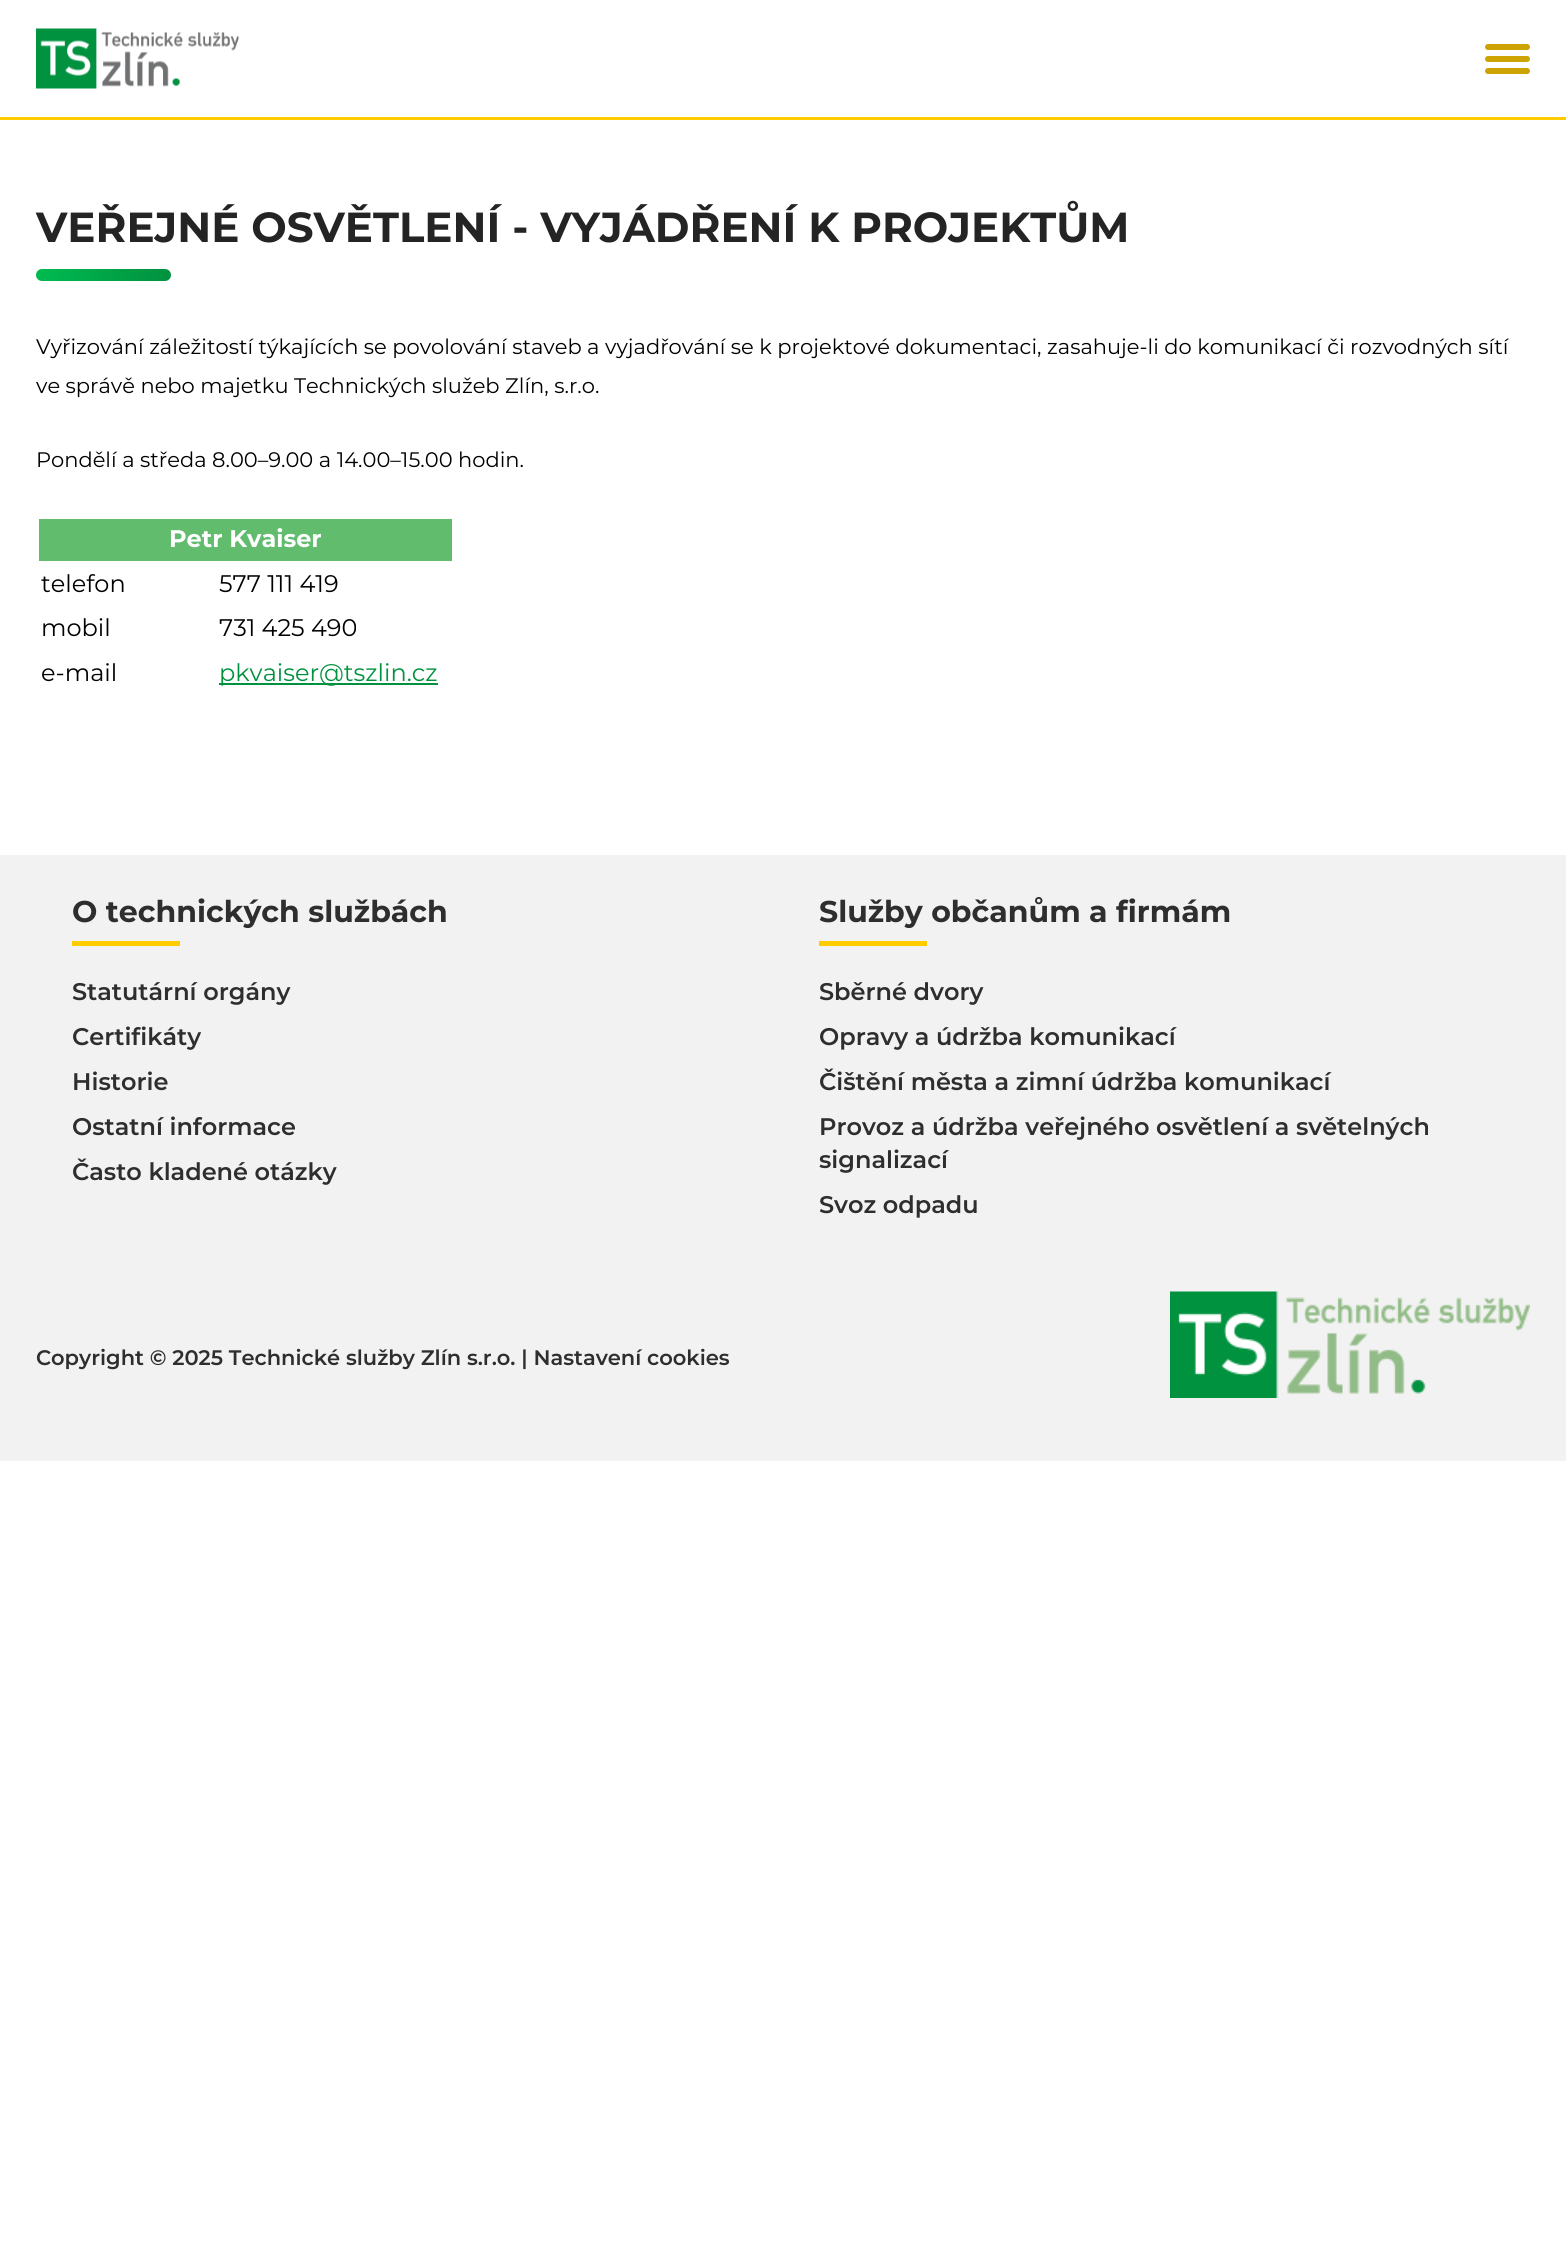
#include <cairo.h>
#include <math.h>
#include <stddef.h>


static void rgb(cairo_t *cr, int r, int g, int b)
{
	cairo_set_source_rgb(cr, r / 255.0, g / 255.0, b / 255.0);
}

static void face(cairo_t *cr, const char *family, double size, int italic, int bold)
{
	cairo_select_font_face(cr, family, italic ? CAIRO_FONT_SLANT_ITALIC : CAIRO_FONT_SLANT_NORMAL,
		bold ? CAIRO_FONT_WEIGHT_BOLD : CAIRO_FONT_WEIGHT_NORMAL);
	cairo_set_font_size(cr, size);
}

static void label(cairo_t *cr, double x, double y, const char *s)
{
	cairo_move_to(cr, x, y);
	cairo_show_text(cr, s);
}

static void rect(cairo_t *cr, double x, double y, double w, double h)
{
	cairo_rectangle(cr, x, y, w, h);
	cairo_fill(cr);
}

static void rrect(cairo_t *cr, double x, double y, double w, double h, double r)
{
	cairo_new_sub_path(cr);
	cairo_arc(cr, x + w - r, y + h - r, r, 0, M_PI / 2);
	cairo_arc(cr, x + r, y + h - r, r, M_PI / 2, M_PI);
	cairo_arc(cr, x + r, y + r, r, M_PI, 1.5 * M_PI);
	cairo_arc(cr, x + w - r, y + r, r, 1.5 * M_PI, 2 * M_PI);
	cairo_close_path(cr);
}

static void image(cairo_t *cr, const char *path, double x, double y, double w, double h)
{
	cairo_surface_t *image = cairo_image_surface_create_from_png(path);
	cairo_save(cr);
	cairo_set_source_surface(cr, image, x, y);
	cairo_rectangle(cr, x, y, w, h);
	cairo_fill(cr);
	cairo_restore(cr);
	cairo_surface_destroy(image);
}

static void draw(cairo_t *cr) {
	cairo_pattern_t *gradient;
	rgb(cr, 255, 255, 255);
	cairo_paint(cr);
	rgb(cr, 255, 204, 0);
	rect(cr, 0, 117, 1566, 3);
	image(cr, "image0.png", 36, 28, 203, 61);
	rgb(cr, 204, 163, 0);
	rrect(cr, 1485, 44, 45, 6, 3);
	cairo_fill(cr);
	rrect(cr, 1485, 56, 45, 6, 3);
	cairo_fill(cr);
	rrect(cr, 1485, 68, 45, 6, 3);
	cairo_fill(cr);
	face(cr, "Montserrat", 42, 0, 1);
	rgb(cr, 36, 36, 36);
	label(cr, 36, 242, "VEŘEJNÉ OSVĚTLENÍ - VYJÁDŘENÍ K PROJEKTŮM");
	gradient = cairo_pattern_create_linear(171, 275, 36, 275);
	cairo_pattern_add_color_stop_rgba(gradient, 0, 0.004, 0.569, 0.247, 1);
	cairo_pattern_add_color_stop_rgba(gradient, 1, 0, 0.733, 0.318, 1);
	cairo_set_source(cr, gradient);
	cairo_pattern_destroy(gradient);
	rrect(cr, 36, 269, 135, 12, 6);
	cairo_fill(cr);
	face(cr, "Montserrat", 21, 0, 0);
	rgb(cr, 0, 0, 0);
	label(cr, 36, 354, "Vyřizování záležitostí týkajících se povolování staveb a vyjadřování se k projektové dokumentaci, zasahuje-li do komunikací či rozvodných sítí");
	label(cr, 36, 393, "ve správě nebo majetku Technických služeb Zlín, s.r.o.");
	label(cr, 36, 467, "Pondělí a středa 8.00–9.00 a 14.00–15.00 hodin.");
	rgb(cr, 97, 189, 109);
	rect(cr, 39, 519, 413, 42);
	face(cr, "Montserrat", 24, 0, 1);
	rgb(cr, 255, 255, 255);
	label(cr, 169, 547, "Petr Kvaiser");
	face(cr, "Montserrat", 24, 0, 0);
	rgb(cr, 0, 0, 0);
	label(cr, 41, 592, "telefon");
	label(cr, 219, 592, "577 111 419");
	label(cr, 41, 636, "mobil");
	label(cr, 219, 636, "731 425 490");
	label(cr, 41, 681, "e-mail");
	rgb(cr, 1, 146, 64);
	rect(cr, 219, 683, 219, 2);
	label(cr, 219, 681, "pkvaiser@tszlin.cz");
	rgb(cr, 242, 242, 242);
	rect(cr, 0, 855, 1566, 606);
	face(cr, "Montserrat", 30, 0, 1);
	rgb(cr, 46, 46, 46);
	label(cr, 72, 922, "O technických službách");
	rgb(cr, 255, 204, 0);
	rect(cr, 72, 941, 108, 5);
	face(cr, "Montserrat SemiBold", 24, 0, 0);
	rgb(cr, 46, 46, 46);
	label(cr, 72, 1000, "Statutární orgány");
	label(cr, 72, 1045, "Certifikáty");
	label(cr, 72, 1090, "Historie");
	label(cr, 72, 1135, "Ostatní informace");
	label(cr, 72, 1180, "Často kladené otázky");
	face(cr, "Montserrat", 30, 0, 1);
	label(cr, 819, 922, "Služby občanům a firmám");
	rgb(cr, 255, 204, 0);
	rect(cr, 819, 941, 108, 5);
	face(cr, "Montserrat SemiBold", 24, 0, 0);
	rgb(cr, 46, 46, 46);
	label(cr, 819, 1000, "Sběrné dvory");
	label(cr, 819, 1045, "Opravy a údržba komunikací");
	label(cr, 819, 1090, "Čištění města a zimní údržba komunikací");
	label(cr, 819, 1135, "Provoz a údržba veřejného osvětlení a světelných");
	label(cr, 819, 1168, "signalizací");
	label(cr, 819, 1213, "Svoz odpadu");
	face(cr, "Montserrat SemiBold", 21, 0, 0);
	label(cr, 36, 1365, "Copyright © 2025 Technické služby Zlín s.r.o. | Nastavení cookies");
	image(cr, "image1.png", 1170, 1291, 360, 107);
}

int main(void) {
	cairo_surface_t *surface = cairo_image_surface_create(CAIRO_FORMAT_RGB24, 1566, 2250);
	cairo_t *cr = cairo_create(surface);
	cairo_font_options_t *options = cairo_font_options_create();
	cairo_font_options_set_hint_metrics(options, CAIRO_HINT_METRICS_OFF);
	cairo_font_options_set_hint_style(options, CAIRO_HINT_STYLE_NONE);
	cairo_set_font_options(cr, options);
	cairo_set_miter_limit(cr, 4);
	draw(cr);
	cairo_surface_write_to_png(surface, "render.png");
	cairo_font_options_destroy(options);
	cairo_destroy(cr);
	cairo_surface_destroy(surface);
	return 0;
}
